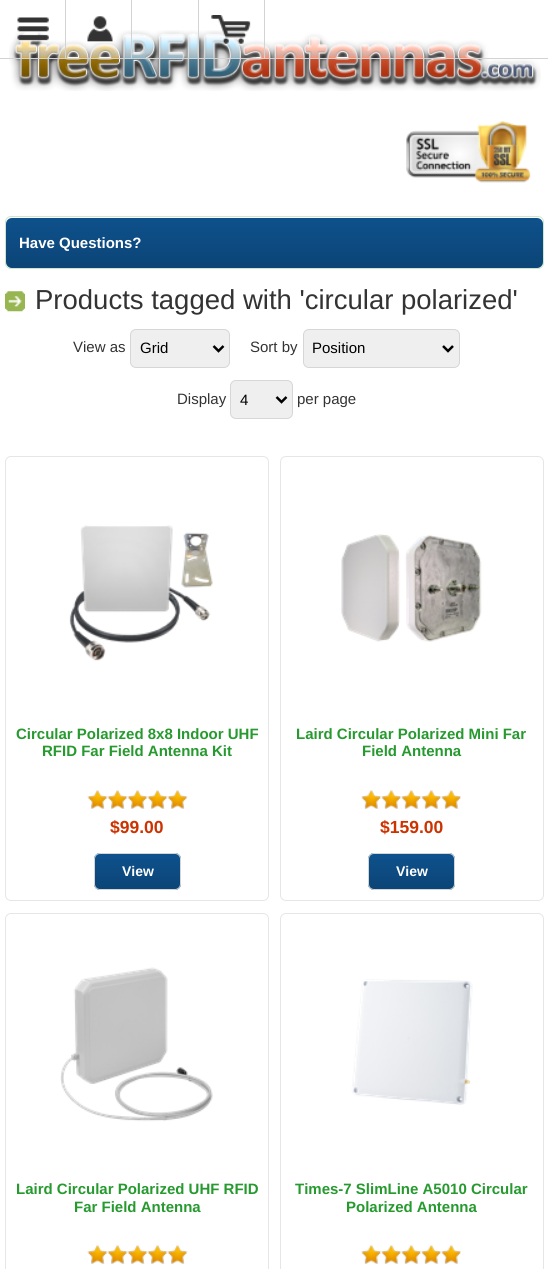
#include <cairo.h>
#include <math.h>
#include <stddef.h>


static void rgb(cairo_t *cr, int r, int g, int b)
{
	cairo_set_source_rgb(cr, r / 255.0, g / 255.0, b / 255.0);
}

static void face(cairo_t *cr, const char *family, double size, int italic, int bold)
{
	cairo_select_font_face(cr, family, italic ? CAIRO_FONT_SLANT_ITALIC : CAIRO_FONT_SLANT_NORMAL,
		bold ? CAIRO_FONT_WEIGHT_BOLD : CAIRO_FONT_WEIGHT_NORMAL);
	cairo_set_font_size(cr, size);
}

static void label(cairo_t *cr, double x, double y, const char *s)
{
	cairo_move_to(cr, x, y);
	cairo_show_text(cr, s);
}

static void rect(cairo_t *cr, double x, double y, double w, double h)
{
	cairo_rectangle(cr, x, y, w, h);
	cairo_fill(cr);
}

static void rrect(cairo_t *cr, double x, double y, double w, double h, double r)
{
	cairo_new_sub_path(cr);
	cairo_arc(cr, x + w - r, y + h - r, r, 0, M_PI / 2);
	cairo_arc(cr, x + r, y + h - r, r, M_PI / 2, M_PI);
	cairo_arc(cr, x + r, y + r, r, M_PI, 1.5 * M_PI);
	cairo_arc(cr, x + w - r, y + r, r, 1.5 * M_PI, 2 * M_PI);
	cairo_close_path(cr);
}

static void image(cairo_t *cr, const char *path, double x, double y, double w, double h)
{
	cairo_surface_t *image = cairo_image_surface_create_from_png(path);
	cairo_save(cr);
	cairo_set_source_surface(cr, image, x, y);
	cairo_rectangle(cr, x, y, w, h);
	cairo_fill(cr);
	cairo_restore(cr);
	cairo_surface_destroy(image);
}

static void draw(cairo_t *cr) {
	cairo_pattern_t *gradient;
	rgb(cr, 255, 255, 255);
	cairo_paint(cr);
	image(cr, "image3.png", 9, 30, 532, 61);
	rgb(cr, 211, 211, 211);
	rect(cr, 0, 58, 548, 1);
	rect(cr, 65, 0, 1, 58);
	image(cr, "image0.png", 17, 17, 32, 26);
	rect(cr, 131, 0, 1, 58);
	image(cr, "image1.png", 87, 16, 26, 27);
	rect(cr, 198, 0, 1, 58);
	rect(cr, 264, 0, 1, 58);
	image(cr, "image2.png", 211, 15, 40, 32);
	image(cr, "image4.png", 406, 121, 125, 62);
	rrect(cr, 5.5, 216.5, 538, 52, 5.5);
	rgb(cr, 205, 231, 207);
	cairo_set_line_width(cr, 1);
	cairo_stroke(cr);
	rgb(cr, 14, 81, 140);
	rrect(cr, 6, 218, 537, 50, 6);
	cairo_fill(cr);
	gradient = cairo_pattern_create_linear(274, 217, 274, 268);
	cairo_pattern_add_color_stop_rgba(gradient, 0, 0, 0, 0, 0);
	cairo_pattern_add_color_stop_rgba(gradient, 1, 0, 0, 0, 0.15);
	cairo_set_source(cr, gradient);
	cairo_pattern_destroy(gradient);
	rrect(cr, 6, 218, 537, 50, 6);
	cairo_fill(cr);
	face(cr, "Liberation Sans", 15, 0, 1);
	rgb(cr, 255, 255, 255);
	label(cr, 19, 248, "Have Questions?");
	image(cr, "image5.png", 5, 291, 20, 21);
	face(cr, "Liberation Sans", 27.5, 0, 0);
	rgb(cr, 51, 51, 51);
	label(cr, 35, 309, "Products tagged with 'circular polarized'");
	face(cr, "Liberation Sans", 15, 0, 0);
	label(cr, 73, 352, "View as");
	rgb(cr, 239, 239, 239);
	rrect(cr, 130.5, 329.5, 99, 38, 5.5);
	cairo_fill_preserve(cr);
	rgb(cr, 214, 214, 214);
	cairo_stroke(cr);
	cairo_new_path(cr);
	cairo_move_to(cr, 213.5, 346);
	cairo_line_to(cr, 218.5, 351);
	cairo_line_to(cr, 223.5, 346);
	rgb(cr, 0, 0, 0);
	cairo_set_line_width(cr, 2.5);
	cairo_stroke(cr);
	label(cr, 140, 353, "Grid");
	rgb(cr, 51, 51, 51);
	label(cr, 250, 352, "Sort by");
	rgb(cr, 239, 239, 239);
	rrect(cr, 303.5, 329.5, 156, 38, 5.5);
	cairo_fill_preserve(cr);
	rgb(cr, 214, 214, 214);
	cairo_set_line_width(cr, 1);
	cairo_stroke(cr);
	cairo_new_path(cr);
	cairo_move_to(cr, 443, 346);
	cairo_line_to(cr, 448, 351);
	cairo_line_to(cr, 453, 346);
	rgb(cr, 0, 0, 0);
	cairo_set_line_width(cr, 2.5);
	cairo_stroke(cr);
	label(cr, 312, 353, "Position");
	rgb(cr, 51, 51, 51);
	label(cr, 177, 404, "Display");
	rgb(cr, 239, 239, 239);
	rrect(cr, 230.5, 380.5, 62, 38, 5.5);
	cairo_fill_preserve(cr);
	rgb(cr, 214, 214, 214);
	cairo_set_line_width(cr, 1);
	cairo_stroke(cr);
	cairo_new_path(cr);
	cairo_move_to(cr, 276.5, 397);
	cairo_line_to(cr, 281.5, 402);
	cairo_line_to(cr, 286.5, 397);
	rgb(cr, 0, 0, 0);
	cairo_set_line_width(cr, 2.5);
	cairo_stroke(cr);
	label(cr, 240, 405, "4");
	rgb(cr, 51, 51, 51);
	label(cr, 297, 404, "per page");
	rrect(cr, 5.5, 456.5, 263, 444, 5.5);
	rgb(cr, 230, 230, 230);
	cairo_set_line_width(cr, 1);
	cairo_stroke(cr);
	image(cr, "image6.png", 69, 525, 144, 136);
	face(cr, "Liberation Sans", 15, 0, 1);
	rgb(cr, 38, 153, 47);
	label(cr, 16, 739, "Circular Polarized 8x8 Indoor UHF");
	label(cr, 42, 756, "RFID Far Field Antenna Kit");
	image(cr, "image7.png", 87, 790, 101, 19);
	image(cr, "image8.png", 87, 790, 101, 19);
	face(cr, "Liberation Sans", 17.5, 0, 1);
	rgb(cr, 204, 51, 0);
	label(cr, 110, 833, "$99.00");
	rgb(cr, 14, 81, 140);
	rrect(cr, 94, 853, 87, 37, 6);
	cairo_fill(cr);
	cairo_save(cr);
	rrect(cr, 94, 853, 87, 37, 6);
	cairo_clip(cr);
	gradient = cairo_pattern_create_linear(138, 854, 138, 889);
	cairo_pattern_add_color_stop_rgba(gradient, 0, 0, 0, 0, 0);
	cairo_pattern_add_color_stop_rgba(gradient, 1, 0, 0, 0, 0.15);
	cairo_set_source(cr, gradient);
	cairo_pattern_destroy(gradient);
	rect(cr, 94, 859, 87, 30);
	cairo_restore(cr);
	rrect(cr, 94.5, 853.5, 86, 36, 5.5);
	rgb(cr, 213, 213, 213);
	cairo_stroke(cr);
	face(cr, "Liberation Sans", 14, 0, 1);
	rgb(cr, 255, 255, 255);
	label(cr, 122, 876, "View");
	rrect(cr, 280.5, 456.5, 263, 444, 5.5);
	rgb(cr, 230, 230, 230);
	cairo_stroke(cr);
	image(cr, "image9.png", 341, 534, 141, 108);
	face(cr, "Liberation Sans", 15, 0, 1);
	rgb(cr, 38, 153, 47);
	label(cr, 296, 739, "Laird Circular Polarized Mini Far");
	label(cr, 362, 756, "Field Antenna");
	image(cr, "image10.png", 361, 790, 100, 19);
	image(cr, "image11.png", 361, 790, 100, 19);
	face(cr, "Liberation Sans", 17.5, 0, 1);
	rgb(cr, 204, 51, 0);
	label(cr, 380, 833, "$159.00");
	rgb(cr, 14, 81, 140);
	rrect(cr, 368, 853, 87, 37, 6);
	cairo_fill(cr);
	cairo_save(cr);
	rrect(cr, 368, 853, 87, 37, 6);
	cairo_clip(cr);
	gradient = cairo_pattern_create_linear(411, 854, 411, 889);
	cairo_pattern_add_color_stop_rgba(gradient, 0, 0, 0, 0, 0);
	cairo_pattern_add_color_stop_rgba(gradient, 1, 0, 0, 0, 0.15);
	cairo_set_source(cr, gradient);
	cairo_pattern_destroy(gradient);
	rect(cr, 368, 859, 87, 30);
	cairo_restore(cr);
	rrect(cr, 368.5, 853.5, 86, 36, 5.5);
	rgb(cr, 213, 213, 213);
	cairo_stroke(cr);
	face(cr, "Liberation Sans", 14, 0, 1);
	rgb(cr, 255, 255, 255);
	label(cr, 396, 876, "View");
	rrect(cr, 5.5, 913.5, 263, 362, 5.5);
	rgb(cr, 230, 230, 230);
	cairo_stroke(cr);
	image(cr, "image12.png", 60, 967, 153, 155);
	face(cr, "Liberation Sans", 15, 0, 1);
	rgb(cr, 38, 153, 47);
	label(cr, 16, 1194, "Laird Circular Polarized UHF RFID");
	label(cr, 74, 1212, "Far Field Antenna");
	image(cr, "image13.png", 87, 1245, 101, 19);
	image(cr, "image14.png", 87, 1245, 101, 19);
	rrect(cr, 280.5, 913.5, 263, 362, 5.5);
	rgb(cr, 230, 230, 230);
	cairo_stroke(cr);
	image(cr, "image15.png", 351, 979, 122, 126);
	rgb(cr, 38, 153, 47);
	label(cr, 295, 1194, "Times-7 SlimLine A5010 Circular");
	label(cr, 346, 1212, "Polarized Antenna");
	image(cr, "image16.png", 361, 1245, 100, 19);
	image(cr, "image17.png", 361, 1245, 100, 19);
}

int main(void) {
	cairo_surface_t *surface = cairo_image_surface_create(CAIRO_FORMAT_RGB24, 548, 1269);
	cairo_t *cr = cairo_create(surface);
	cairo_font_options_t *options = cairo_font_options_create();
	cairo_font_options_set_hint_metrics(options, CAIRO_HINT_METRICS_OFF);
	cairo_font_options_set_hint_style(options, CAIRO_HINT_STYLE_NONE);
	cairo_set_font_options(cr, options);
	cairo_set_miter_limit(cr, 4);
	draw(cr);
	cairo_surface_write_to_png(surface, "render.png");
	cairo_font_options_destroy(options);
	cairo_destroy(cr);
	cairo_surface_destroy(surface);
	return 0;
}
